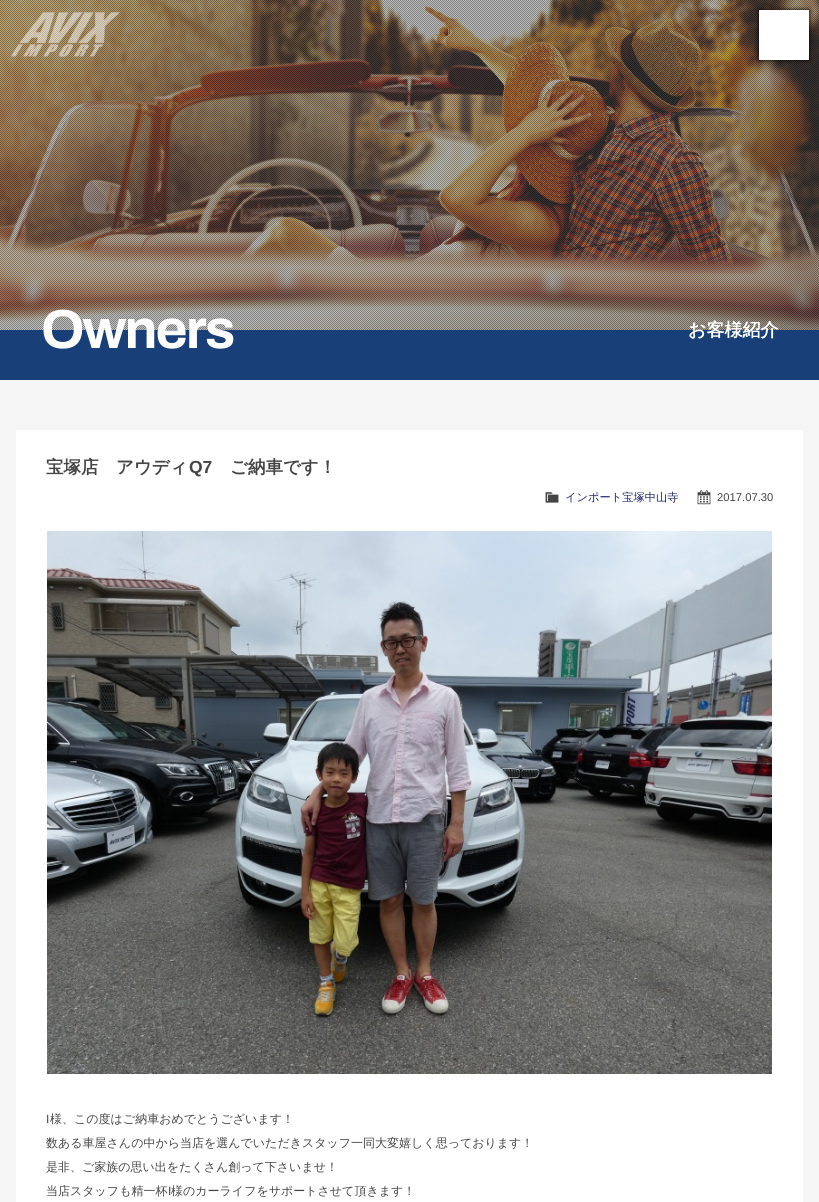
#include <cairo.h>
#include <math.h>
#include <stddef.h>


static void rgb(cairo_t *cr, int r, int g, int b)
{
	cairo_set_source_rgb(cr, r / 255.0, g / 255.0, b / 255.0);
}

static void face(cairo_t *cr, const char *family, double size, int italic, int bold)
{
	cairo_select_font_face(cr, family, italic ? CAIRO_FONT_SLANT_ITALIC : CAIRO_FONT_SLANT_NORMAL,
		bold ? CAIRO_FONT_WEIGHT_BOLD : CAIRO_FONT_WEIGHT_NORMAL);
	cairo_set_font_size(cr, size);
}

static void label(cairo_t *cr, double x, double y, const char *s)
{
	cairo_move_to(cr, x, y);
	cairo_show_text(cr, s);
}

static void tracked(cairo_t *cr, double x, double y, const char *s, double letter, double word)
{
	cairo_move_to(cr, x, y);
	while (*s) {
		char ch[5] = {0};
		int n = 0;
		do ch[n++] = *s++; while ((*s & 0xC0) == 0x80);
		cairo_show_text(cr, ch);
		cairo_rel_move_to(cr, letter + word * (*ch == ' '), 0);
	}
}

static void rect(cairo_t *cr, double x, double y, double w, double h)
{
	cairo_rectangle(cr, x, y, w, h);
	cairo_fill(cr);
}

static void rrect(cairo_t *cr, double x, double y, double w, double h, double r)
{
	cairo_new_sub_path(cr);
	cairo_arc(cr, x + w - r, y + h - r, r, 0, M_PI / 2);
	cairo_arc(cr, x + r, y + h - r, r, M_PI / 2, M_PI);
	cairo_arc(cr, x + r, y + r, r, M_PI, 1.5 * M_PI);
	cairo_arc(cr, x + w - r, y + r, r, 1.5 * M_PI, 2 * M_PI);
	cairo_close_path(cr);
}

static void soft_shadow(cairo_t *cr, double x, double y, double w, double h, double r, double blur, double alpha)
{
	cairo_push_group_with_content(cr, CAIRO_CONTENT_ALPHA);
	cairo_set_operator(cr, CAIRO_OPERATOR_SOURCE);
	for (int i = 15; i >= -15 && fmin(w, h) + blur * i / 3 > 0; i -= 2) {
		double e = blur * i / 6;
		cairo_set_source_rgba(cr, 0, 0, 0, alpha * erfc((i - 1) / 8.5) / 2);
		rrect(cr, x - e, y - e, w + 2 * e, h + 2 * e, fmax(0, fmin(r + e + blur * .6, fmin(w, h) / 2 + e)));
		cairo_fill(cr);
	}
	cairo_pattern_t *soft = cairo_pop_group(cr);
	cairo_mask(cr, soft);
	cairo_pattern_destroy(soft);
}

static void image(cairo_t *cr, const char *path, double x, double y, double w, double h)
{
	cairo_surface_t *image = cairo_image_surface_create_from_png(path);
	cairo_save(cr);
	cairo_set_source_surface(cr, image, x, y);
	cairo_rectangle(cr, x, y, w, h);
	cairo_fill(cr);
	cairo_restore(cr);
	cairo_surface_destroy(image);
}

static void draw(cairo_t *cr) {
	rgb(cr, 255, 255, 255);
	cairo_paint(cr);
	image(cr, "image1.png", 0, 0, 819, 330);
	image(cr, "image2.png", 0, 0, 819, 330);
	rgb(cr, 0, 0, 0);
	soft_shadow(cr, 759, 10, 50, 50, 0, 2.5, 1);
	rgb(cr, 255, 255, 255);
	rect(cr, 759, 10, 50, 50);
	image(cr, "image0.png", 11, 12, 110, 45);
	rgb(cr, 24, 63, 119);
	rect(cr, 0, 330, 819, 50);
	face(cr, "Archivo", 55, 0, 1);
	rgb(cr, 255, 255, 255);
	tracked(cr, 41, 348, "Owners", -2, 0);
	face(cr, "WenQuanYi Zen Hei", 18, 0, 1);
	label(cr, 688, 336, "お客様紹介");
	rgb(cr, 245, 245, 245);
	rect(cr, 0, 380, 819, 822);
	rgb(cr, 255, 255, 255);
	rect(cr, 16, 430, 787, 772);
	face(cr, "WenQuanYi Zen Hei", 17.5, 0, 1);
	rgb(cr, 69, 69, 69);
	label(cr, 46, 473, "宝塚店　アウディ");
	face(cr, "Liberation Sans", 17.5, 0, 1);
	label(cr, 189, 473, "Q7");
	face(cr, "WenQuanYi Zen Hei", 17.5, 0, 1);
	label(cr, 230, 473, "ご納車です！");
	image(cr, "image3.png", 545, 492, 14, 11);
	face(cr, "WenQuanYi Zen Hei Medium", 11.25, 0, 0);
	rgb(cr, 26, 36, 103);
	label(cr, 565, 501, "インポート宝塚中山寺");
	image(cr, "image4.png", 697, 490, 14, 15);
	face(cr, "Liberation Sans", 11.25, 0, 0);
	rgb(cr, 69, 69, 69);
	label(cr, 717, 501, "2017.07.30");
	image(cr, "image5.png", 47, 531, 725, 543);
	face(cr, "Liberation Sans", 12, 0, 0);
	label(cr, 46, 1123, "I");
	face(cr, "WenQuanYi Zen Hei Medium", 12, 0, 0);
	label(cr, 50, 1123, "様、この度はご納車おめでとうございます！");
	label(cr, 46, 1147, "数ある車屋さんの中から当店を選んでいただきスタッフ一同大変嬉しく思っております！");
	label(cr, 46, 1171, "是非、ご家族の思い出をたくさん創って下さいませ！");
	label(cr, 46, 1195, "当店スタッフも精一杯 様のカーライフをサポートさせて頂きます！");
	face(cr, "Liberation Sans", 12, 0, 0);
	label(cr, 168, 1195, "I");
}

int main(void) {
	cairo_surface_t *surface = cairo_image_surface_create(CAIRO_FORMAT_RGB24, 819, 1202);
	cairo_t *cr = cairo_create(surface);
	cairo_font_options_t *options = cairo_font_options_create();
	cairo_font_options_set_hint_metrics(options, CAIRO_HINT_METRICS_OFF);
	cairo_font_options_set_hint_style(options, CAIRO_HINT_STYLE_NONE);
	cairo_set_font_options(cr, options);
	cairo_set_miter_limit(cr, 4);
	draw(cr);
	cairo_surface_write_to_png(surface, "render.png");
	cairo_font_options_destroy(options);
	cairo_destroy(cr);
	cairo_surface_destroy(surface);
	return 0;
}
